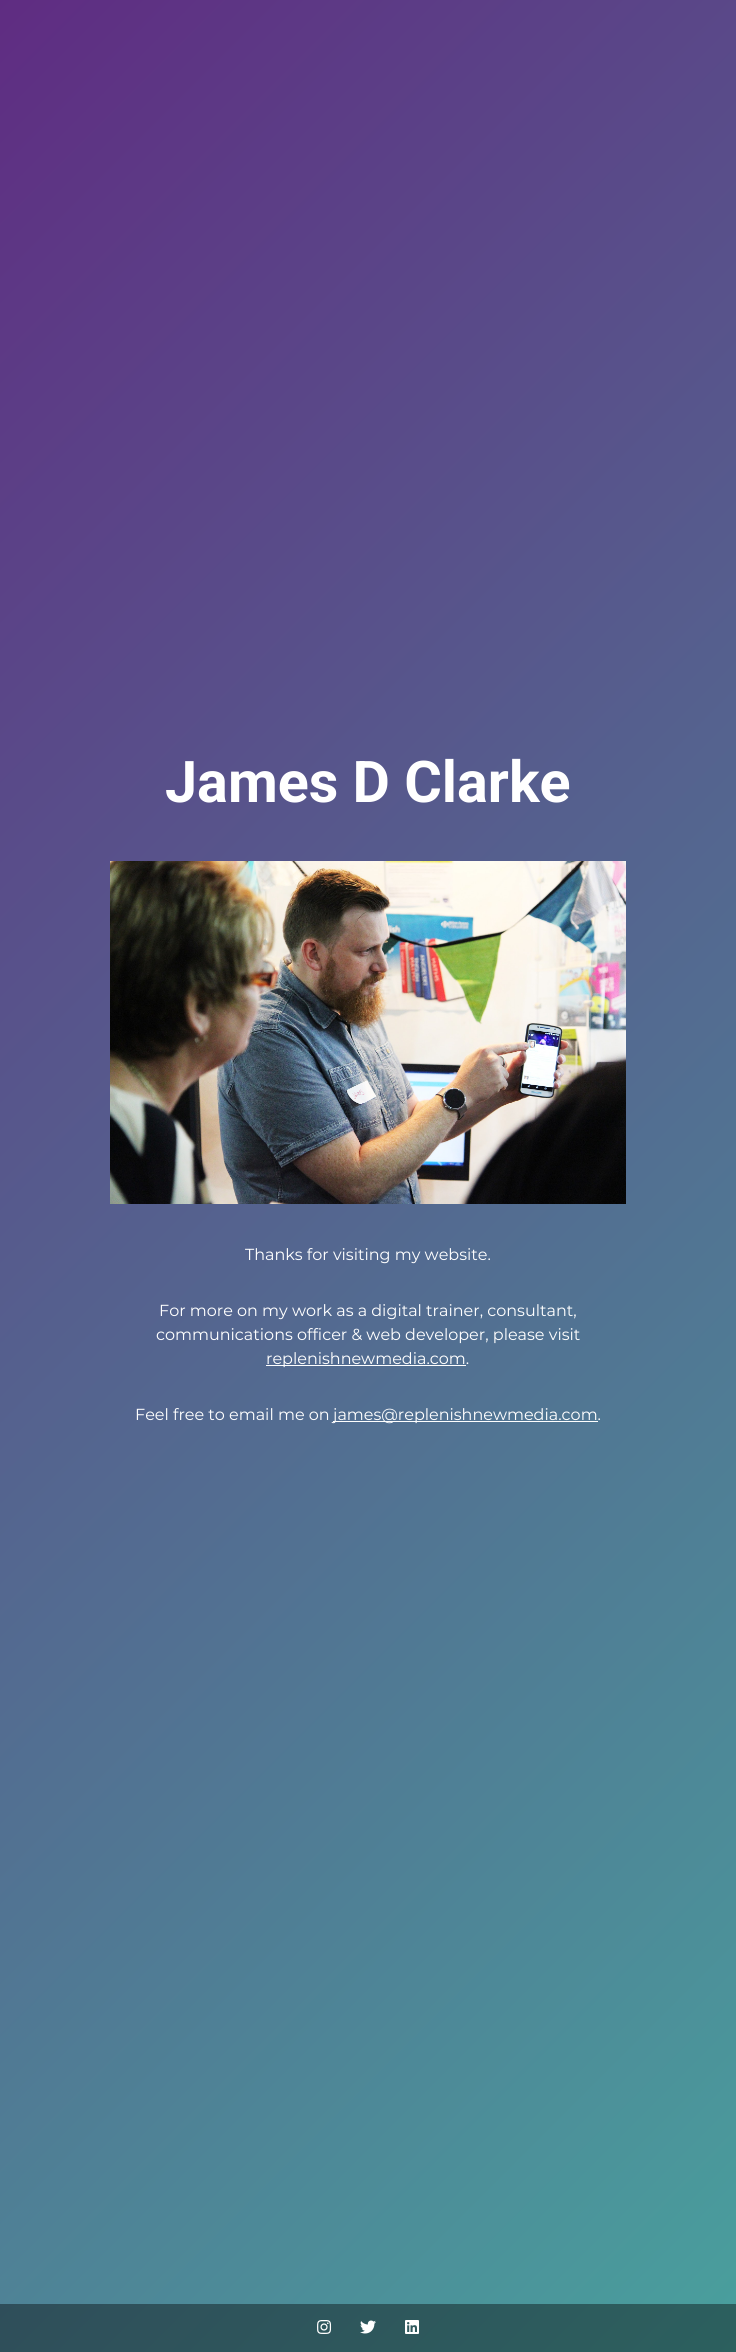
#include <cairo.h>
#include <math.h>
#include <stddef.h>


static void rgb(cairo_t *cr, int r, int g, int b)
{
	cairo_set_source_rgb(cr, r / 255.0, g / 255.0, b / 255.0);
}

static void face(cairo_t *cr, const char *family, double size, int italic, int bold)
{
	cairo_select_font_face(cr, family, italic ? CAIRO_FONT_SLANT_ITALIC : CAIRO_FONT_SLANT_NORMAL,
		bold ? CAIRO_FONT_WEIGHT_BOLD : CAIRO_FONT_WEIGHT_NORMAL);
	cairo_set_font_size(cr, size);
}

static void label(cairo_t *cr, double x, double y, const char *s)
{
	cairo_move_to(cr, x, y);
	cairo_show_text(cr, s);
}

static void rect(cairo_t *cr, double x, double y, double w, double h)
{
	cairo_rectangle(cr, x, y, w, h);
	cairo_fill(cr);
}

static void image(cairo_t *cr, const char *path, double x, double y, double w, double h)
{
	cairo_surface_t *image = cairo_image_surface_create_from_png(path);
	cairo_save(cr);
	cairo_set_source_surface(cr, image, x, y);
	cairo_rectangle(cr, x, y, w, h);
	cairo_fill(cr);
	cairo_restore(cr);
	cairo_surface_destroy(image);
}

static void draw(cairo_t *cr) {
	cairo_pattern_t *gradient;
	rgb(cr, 255, 255, 255);
	cairo_paint(cr);
	gradient = cairo_pattern_create_linear(-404, 404, 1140, 1948);
	cairo_pattern_add_color_stop_rgba(gradient, 0, 0.373, 0.173, 0.51, 1);
	cairo_pattern_add_color_stop_rgba(gradient, 1, 0.286, 0.627, 0.616, 1);
	cairo_set_source(cr, gradient);
	cairo_pattern_destroy(gradient);
	rect(cr, 0, 0, 736, 2304);
	gradient = cairo_pattern_create_linear(-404, 404, 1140, 1948);
	cairo_pattern_add_color_stop_rgba(gradient, 0, 0.224, 0.102, 0.306, 1);
	cairo_pattern_add_color_stop_rgba(gradient, 1, 0.173, 0.376, 0.369, 1);
	cairo_set_source(cr, gradient);
	cairo_pattern_destroy(gradient);
	rect(cr, 0, 2304, 736, 48);
	face(cr, "Roboto", 57.5, 0, 1);
	rgb(cr, 255, 255, 255);
	label(cr, 165, 802, "James D Clarke");
	image(cr, "image0.png", 110, 861, 516, 343);
	face(cr, "Montserrat", 16, 0, 0);
	label(cr, 245, 1260, "Thanks for visiting my website.");
	label(cr, 159, 1316, "For more on my work as a digital trainer, consultant,");
	label(cr, 156, 1340, "communications officer & web developer, please visit");
	rect(cr, 266, 1365, 200, 1);
	label(cr, 266, 1364, "replenishnewmedia.com.");
	label(cr, 135, 1420, "Feel free to email me on");
	rect(cr, 333, 1421, 265, 1);
	label(cr, 333, 1420, "james@replenishnewmedia.com.");
	image(cr, "image1.png", 317, 2320, 15, 14);
	image(cr, "image2.png", 360, 2320, 16, 14);
	image(cr, "image3.png", 405, 2320, 14, 14);
}

int main(void) {
	cairo_surface_t *surface = cairo_image_surface_create(CAIRO_FORMAT_RGB24, 736, 2352);
	cairo_t *cr = cairo_create(surface);
	cairo_font_options_t *options = cairo_font_options_create();
	cairo_font_options_set_hint_metrics(options, CAIRO_HINT_METRICS_OFF);
	cairo_font_options_set_hint_style(options, CAIRO_HINT_STYLE_NONE);
	cairo_set_font_options(cr, options);
	cairo_set_miter_limit(cr, 4);
	draw(cr);
	cairo_surface_write_to_png(surface, "render.png");
	cairo_font_options_destroy(options);
	cairo_destroy(cr);
	cairo_surface_destroy(surface);
	return 0;
}
